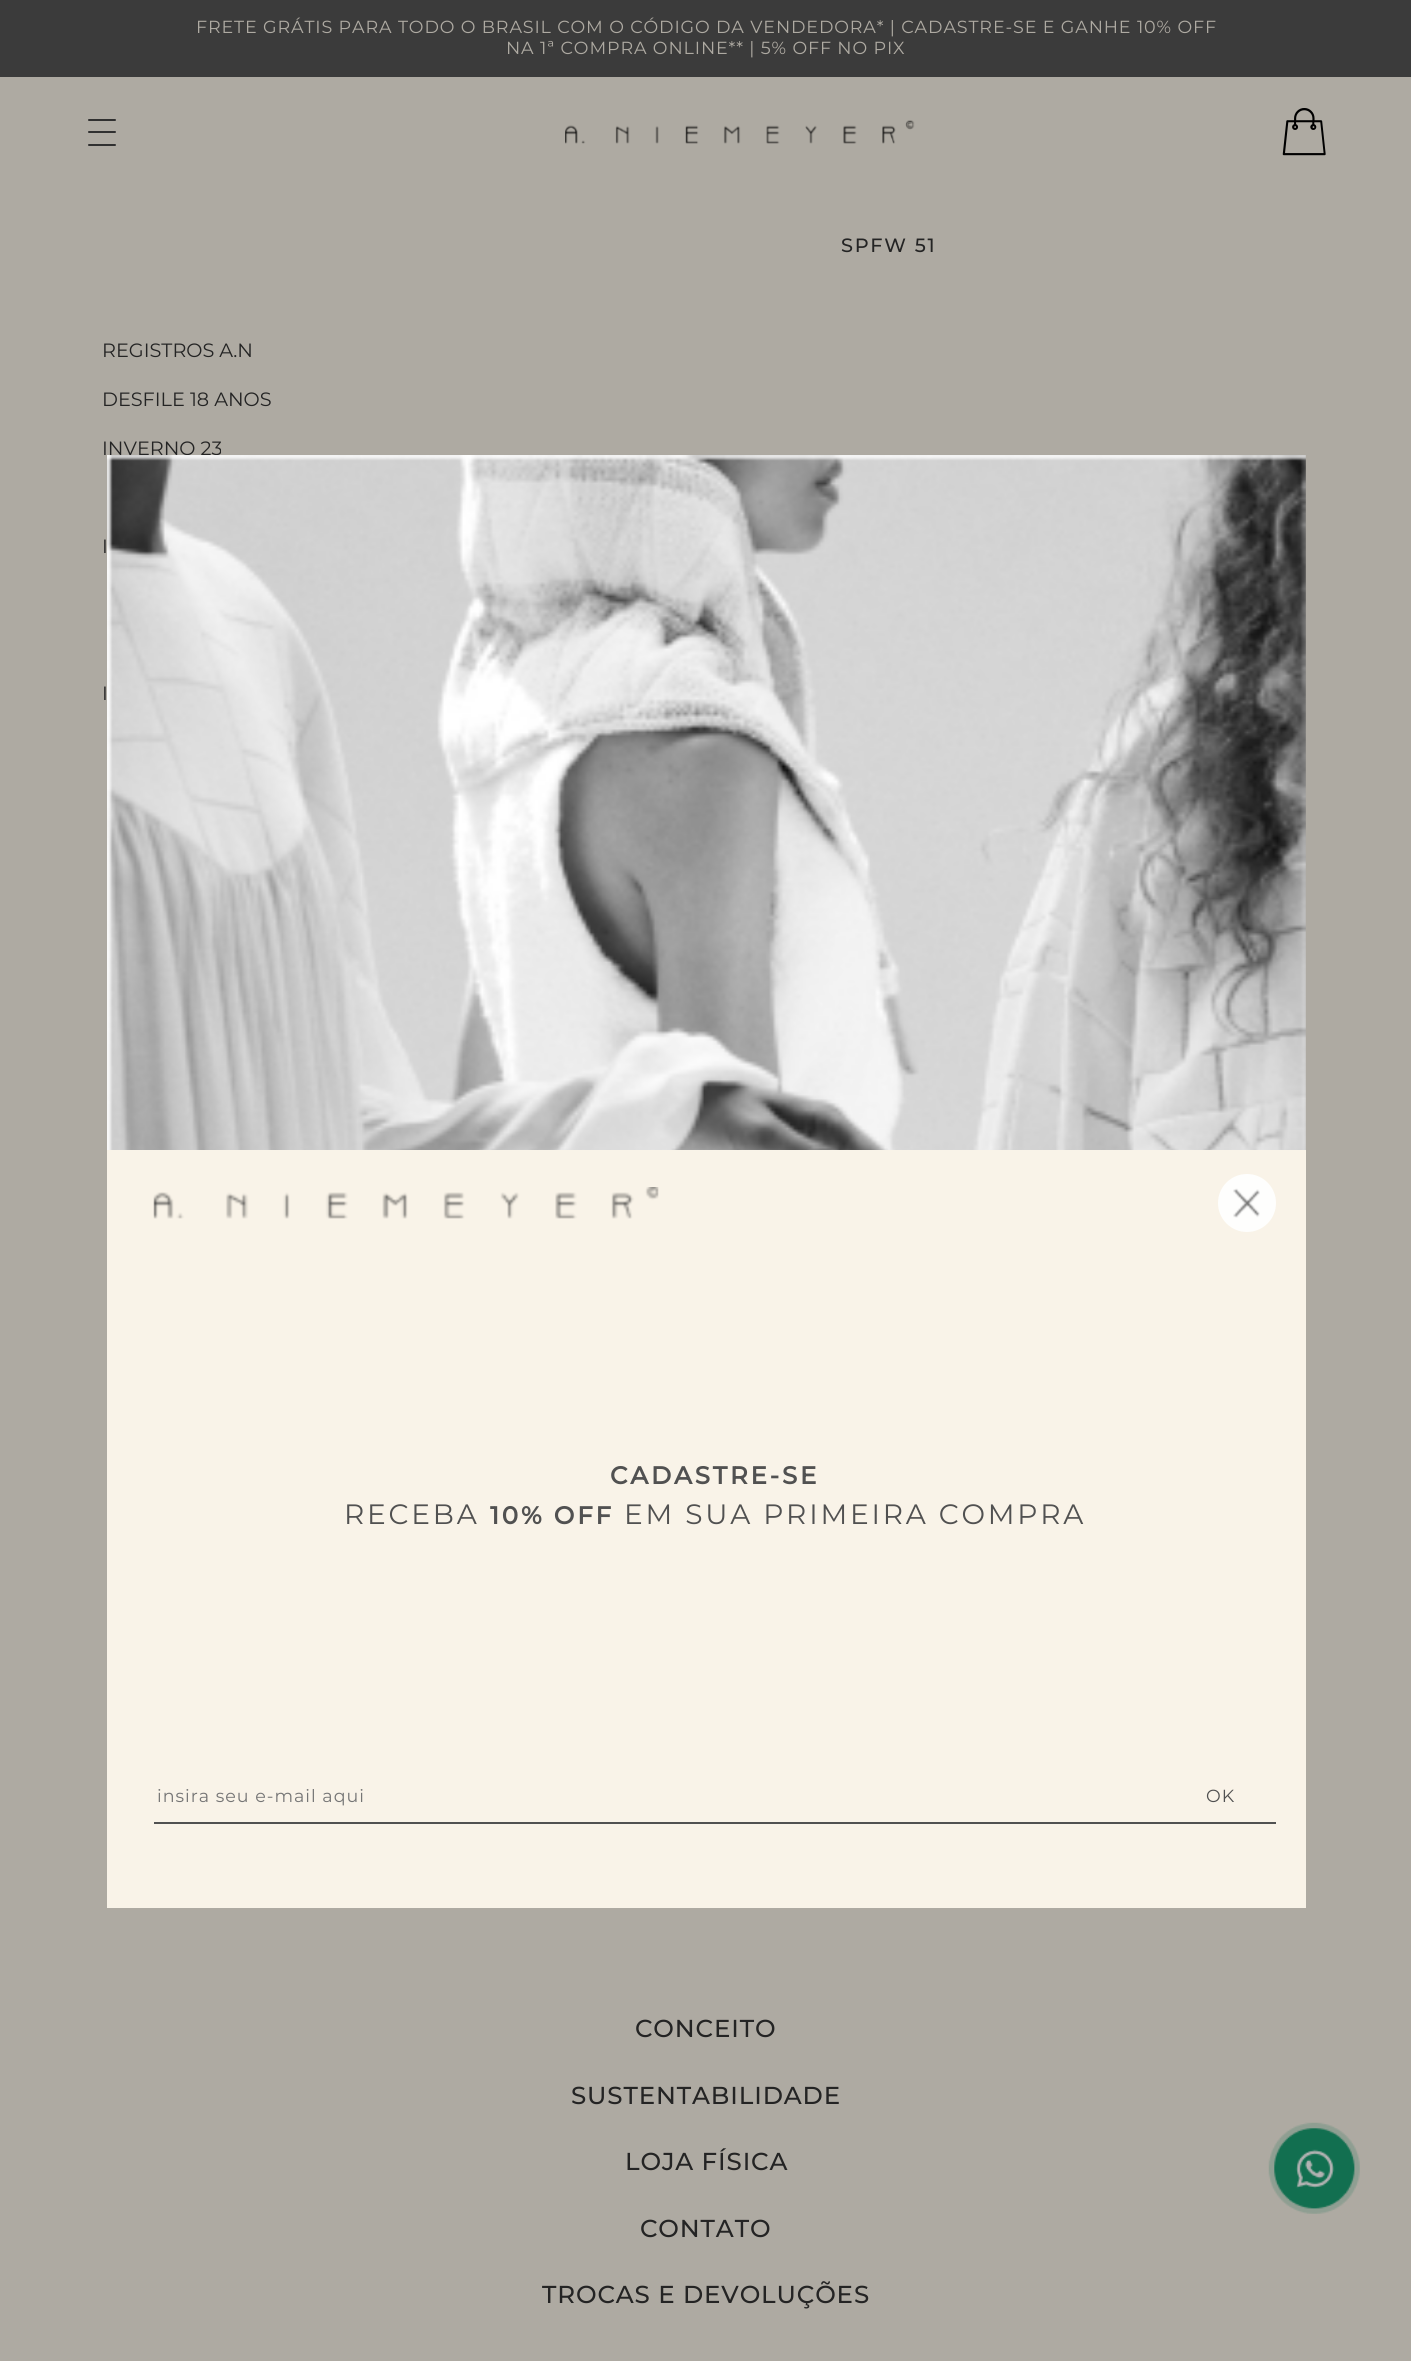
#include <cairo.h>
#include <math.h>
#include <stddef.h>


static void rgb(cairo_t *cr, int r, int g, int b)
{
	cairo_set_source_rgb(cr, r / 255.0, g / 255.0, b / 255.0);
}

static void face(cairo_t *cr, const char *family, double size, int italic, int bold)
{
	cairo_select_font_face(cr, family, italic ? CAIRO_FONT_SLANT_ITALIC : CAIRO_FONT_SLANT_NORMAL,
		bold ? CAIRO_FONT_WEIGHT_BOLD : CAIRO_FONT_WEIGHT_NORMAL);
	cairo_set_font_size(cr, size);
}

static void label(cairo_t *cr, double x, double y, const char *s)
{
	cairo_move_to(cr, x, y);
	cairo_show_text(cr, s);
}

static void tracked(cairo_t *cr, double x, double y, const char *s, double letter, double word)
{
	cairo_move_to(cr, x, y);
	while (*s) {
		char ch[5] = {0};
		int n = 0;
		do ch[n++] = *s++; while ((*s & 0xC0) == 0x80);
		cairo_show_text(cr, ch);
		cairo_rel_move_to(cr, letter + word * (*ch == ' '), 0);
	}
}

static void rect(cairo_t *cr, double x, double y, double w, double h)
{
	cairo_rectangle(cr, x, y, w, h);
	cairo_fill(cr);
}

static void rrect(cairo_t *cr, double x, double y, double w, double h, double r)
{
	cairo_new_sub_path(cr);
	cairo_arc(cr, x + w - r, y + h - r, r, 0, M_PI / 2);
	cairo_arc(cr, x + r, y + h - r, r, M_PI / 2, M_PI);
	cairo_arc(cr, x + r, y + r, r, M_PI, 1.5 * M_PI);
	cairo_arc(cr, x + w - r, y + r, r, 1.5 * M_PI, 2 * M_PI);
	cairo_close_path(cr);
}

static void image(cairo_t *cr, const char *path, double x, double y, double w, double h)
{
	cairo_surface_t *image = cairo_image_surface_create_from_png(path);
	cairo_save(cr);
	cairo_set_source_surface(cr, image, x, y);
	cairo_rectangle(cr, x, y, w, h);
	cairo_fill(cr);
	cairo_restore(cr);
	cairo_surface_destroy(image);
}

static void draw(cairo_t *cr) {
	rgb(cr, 174, 170, 162);
	cairo_paint(cr);
	rgb(cr, 59, 59, 59);
	rect(cr, 0, 0, 1411, 77);
	face(cr, "Montserrat", 17.5, 0, 0);
	rgb(cr, 174, 170, 162);
	tracked(cr, 196, 33, "FRETE GRÁTIS PARA TODO O BRASIL COM O CÓDIGO DA VENDEDORA* | CADASTRE-SE E GANHE 10% OFF", 0.88, 0);
	tracked(cr, 506, 54, "NA 1ª COMPRA ONLINE** | 5% OFF NO PIX", 0.88, 0);
	rgb(cr, 48, 48, 48);
	rrect(cr, 88, 131, 28, 2, 1);
	cairo_fill(cr);
	rrect(cr, 88, 119, 28, 2, 1);
	cairo_fill(cr);
	rrect(cr, 88, 144, 28, 2, 1);
	cairo_fill(cr);
	image(cr, "image0.png", 565, 120, 350, 24);
	image(cr, "image1.png", 1282, 108, 44, 48);
	face(cr, "Montserrat Thin", 19.25, 0, 0);
	rgb(cr, 36, 36, 36);
	tracked(cr, 841, 252, "SPFW 51", 1.75, 0);
	face(cr, "Montserrat", 19.25, 0, 0);
	label(cr, 102, 357, "REGISTROS A.N");
	label(cr, 102, 406, "DESFILE 18 ANOS");
	label(cr, 102, 455, "INVERNO 23");
	label(cr, 102, 553, "I");
	label(cr, 102, 700, "I");
	image(cr, "image2.png", 107, 455, 1199, 695);
	rgb(cr, 249, 243, 232);
	rect(cr, 107, 1150, 1199, 758);
	image(cr, "image3.png", 153, 1187, 506, 32);
	rgb(cr, 254, 254, 253);
	cairo_arc(cr, 1247, 1203, 29, 0, 2 * M_PI);
	cairo_fill(cr);
	image(cr, "image4.png", 1233, 1188, 27, 30);
	face(cr, "Montserrat", 24.5, 0, 1);
	rgb(cr, 81, 81, 81);
	tracked(cr, 610, 1484, "CADASTRE-SE", 2.8, 0);
	face(cr, "Montserrat", 28, 0, 0);
	tracked(cr, 344, 1524, "RECEBA", 2.8, 0);
	face(cr, "Montserrat", 24.5, 0, 1);
	tracked(cr, 490, 1524, "10% OFF", 2.8, 0);
	face(cr, "Montserrat", 28, 0, 0);
	tracked(cr, 624, 1524, "EM SUA PRIMEIRA COMPRA", 2.8, 0);
	rect(cr, 154, 1822, 1122, 2);
	face(cr, "Montserrat", 17.5, 0, 0);
	rgb(cr, 117, 117, 117);
	tracked(cr, 157, 1802, "insira seu e-mail aqui", 1, 0);
	rgb(cr, 81, 81, 81);
	tracked(cr, 1206, 1802, "OK", 1, 0);
	face(cr, "Montserrat Thin", 24.5, 0, 0);
	rgb(cr, 36, 36, 36);
	tracked(cr, 635, 2037, "CONCEITO", 0.88, 0);
	tracked(cr, 571, 2104, "SUSTENTABILIDADE", 0.88, 0);
	tracked(cr, 625, 2170, "LOJA FÍSICA", 0.88, 0);
	tracked(cr, 640, 2237, "CONTATO", 0.88, 0);
	tracked(cr, 542, 2303, "TROCAS E DEVOLUÇÕES", 0.88, 0);
	image(cr, "image5.png", 1268, 2122, 92, 92);
}

int main(void) {
	cairo_surface_t *surface = cairo_image_surface_create(CAIRO_FORMAT_RGB24, 1411, 2361);
	cairo_t *cr = cairo_create(surface);
	cairo_font_options_t *options = cairo_font_options_create();
	cairo_font_options_set_hint_metrics(options, CAIRO_HINT_METRICS_OFF);
	cairo_font_options_set_hint_style(options, CAIRO_HINT_STYLE_NONE);
	cairo_set_font_options(cr, options);
	cairo_set_miter_limit(cr, 4);
	draw(cr);
	cairo_surface_write_to_png(surface, "render.png");
	cairo_font_options_destroy(options);
	cairo_destroy(cr);
	cairo_surface_destroy(surface);
	return 0;
}
